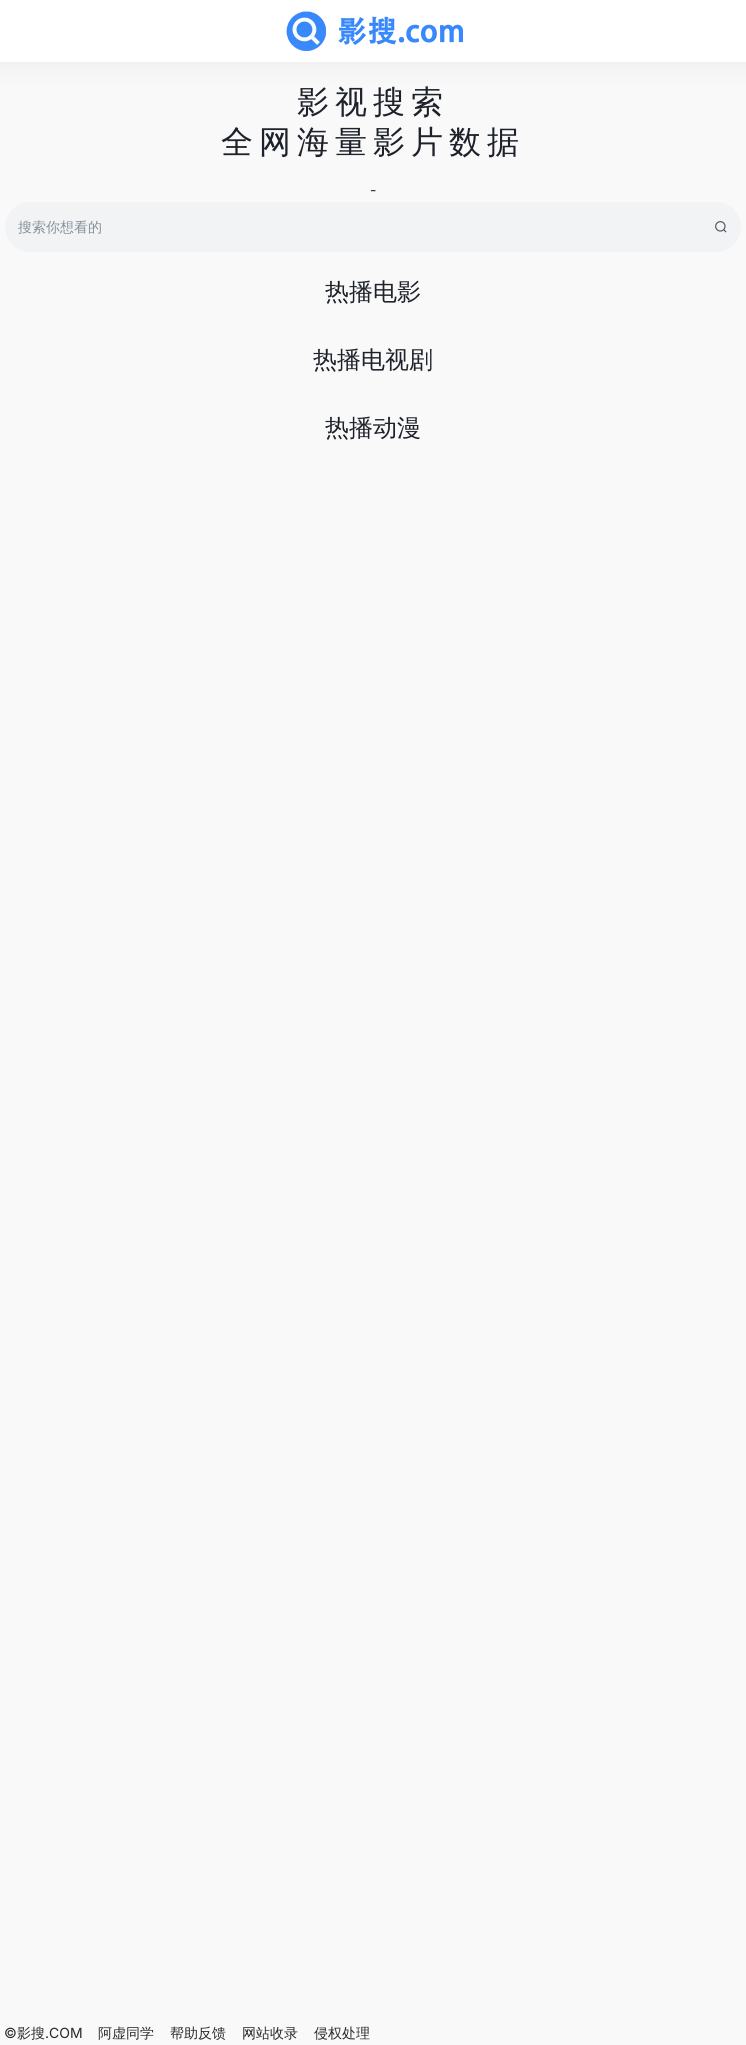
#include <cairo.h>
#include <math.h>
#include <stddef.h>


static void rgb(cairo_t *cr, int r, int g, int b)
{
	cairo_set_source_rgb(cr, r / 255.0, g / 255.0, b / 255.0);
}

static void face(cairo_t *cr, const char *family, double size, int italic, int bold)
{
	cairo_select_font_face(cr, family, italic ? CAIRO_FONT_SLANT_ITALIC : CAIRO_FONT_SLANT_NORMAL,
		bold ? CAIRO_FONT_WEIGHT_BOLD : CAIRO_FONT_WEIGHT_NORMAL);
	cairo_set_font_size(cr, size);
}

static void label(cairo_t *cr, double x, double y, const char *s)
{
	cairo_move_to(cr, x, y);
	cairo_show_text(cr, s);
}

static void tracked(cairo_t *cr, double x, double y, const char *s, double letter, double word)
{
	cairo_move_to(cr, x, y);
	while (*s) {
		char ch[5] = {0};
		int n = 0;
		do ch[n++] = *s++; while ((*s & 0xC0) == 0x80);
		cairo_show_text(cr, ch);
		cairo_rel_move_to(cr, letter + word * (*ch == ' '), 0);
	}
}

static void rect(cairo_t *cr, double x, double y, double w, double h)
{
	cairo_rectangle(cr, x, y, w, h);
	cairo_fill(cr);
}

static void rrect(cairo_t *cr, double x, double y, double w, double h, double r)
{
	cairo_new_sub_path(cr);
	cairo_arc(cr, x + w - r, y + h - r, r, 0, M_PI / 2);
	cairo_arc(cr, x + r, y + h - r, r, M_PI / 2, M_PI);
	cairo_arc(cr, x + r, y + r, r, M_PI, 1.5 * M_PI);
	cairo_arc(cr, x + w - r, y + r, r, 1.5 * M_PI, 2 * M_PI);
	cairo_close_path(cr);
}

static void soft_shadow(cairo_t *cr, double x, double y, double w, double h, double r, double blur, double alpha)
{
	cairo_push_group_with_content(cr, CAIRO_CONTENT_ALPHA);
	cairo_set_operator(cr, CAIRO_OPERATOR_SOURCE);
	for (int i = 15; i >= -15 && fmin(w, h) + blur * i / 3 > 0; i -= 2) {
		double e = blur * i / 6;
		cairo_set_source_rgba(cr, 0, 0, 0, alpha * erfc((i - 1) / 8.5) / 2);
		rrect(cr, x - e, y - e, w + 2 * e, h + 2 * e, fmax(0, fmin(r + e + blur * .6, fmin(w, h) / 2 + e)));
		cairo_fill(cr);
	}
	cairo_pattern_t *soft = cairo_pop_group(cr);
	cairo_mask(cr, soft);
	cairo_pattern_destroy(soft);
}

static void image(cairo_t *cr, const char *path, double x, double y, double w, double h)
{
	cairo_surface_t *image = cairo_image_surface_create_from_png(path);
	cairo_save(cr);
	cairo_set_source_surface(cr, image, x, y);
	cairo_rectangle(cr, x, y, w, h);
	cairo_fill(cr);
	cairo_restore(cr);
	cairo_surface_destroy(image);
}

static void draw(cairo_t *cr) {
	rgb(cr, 249, 249, 249);
	cairo_paint(cr);
	rgb(cr, 10, 10, 10);
	soft_shadow(cr, -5, -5, 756, 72, 0, 12.5, 0.05);
	rgb(cr, 255, 255, 255);
	rect(cr, 0, 0, 746, 62);
	image(cr, "image0.png", 286, 11, 177, 40);
	face(cr, "WenQuanYi Zen Hei Medium", 32, 0, 0);
	rgb(cr, 29, 33, 41);
	tracked(cr, 297, 113, "影视搜索", 6, 0);
	tracked(cr, 221, 153, "全网海量影片数据", 6, 0);
	face(cr, "Inter", 14, 0, 0);
	rgb(cr, 40, 42, 45);
	label(cr, 370, 195, "-");
	rgb(cr, 242, 243, 245);
	rrect(cr, 5, 202, 736, 50, 25);
	cairo_fill(cr);
	face(cr, "WenQuanYi Zen Hei Medium", 14, 0, 0);
	rgb(cr, 134, 144, 156);
	label(cr, 18, 232, "搜索你想看的");
	image(cr, "image1.png", 715, 221, 12, 12);
	face(cr, "WenQuanYi Zen Hei Medium", 24, 0, 0);
	rgb(cr, 29, 33, 41);
	label(cr, 325, 300, "热播电影");
	label(cr, 313, 368, "热播电视剧");
	label(cr, 325, 436, "热播动漫");
	face(cr, "Inter", 14, 0, 0);
	rgb(cr, 40, 42, 45);
	label(cr, 4, 2038, "©");
	face(cr, "WenQuanYi Zen Hei Medium", 14, 0, 0);
	label(cr, 17, 2038, "影搜");
	face(cr, "Inter", 14, 0, 0);
	label(cr, 45, 2038, ".COM");
	face(cr, "WenQuanYi Zen Hei Medium", 14, 0, 0);
	label(cr, 98, 2038, "阿虚同学");
	label(cr, 170, 2038, "帮助反馈");
	label(cr, 242, 2038, "网站收录");
	label(cr, 314, 2038, "侵权处理");
}

int main(void) {
	cairo_surface_t *surface = cairo_image_surface_create(CAIRO_FORMAT_RGB24, 746, 2045);
	cairo_t *cr = cairo_create(surface);
	cairo_font_options_t *options = cairo_font_options_create();
	cairo_font_options_set_hint_metrics(options, CAIRO_HINT_METRICS_OFF);
	cairo_font_options_set_hint_style(options, CAIRO_HINT_STYLE_NONE);
	cairo_set_font_options(cr, options);
	cairo_set_miter_limit(cr, 4);
	draw(cr);
	cairo_surface_write_to_png(surface, "render.png");
	cairo_font_options_destroy(options);
	cairo_destroy(cr);
	cairo_surface_destroy(surface);
	return 0;
}
